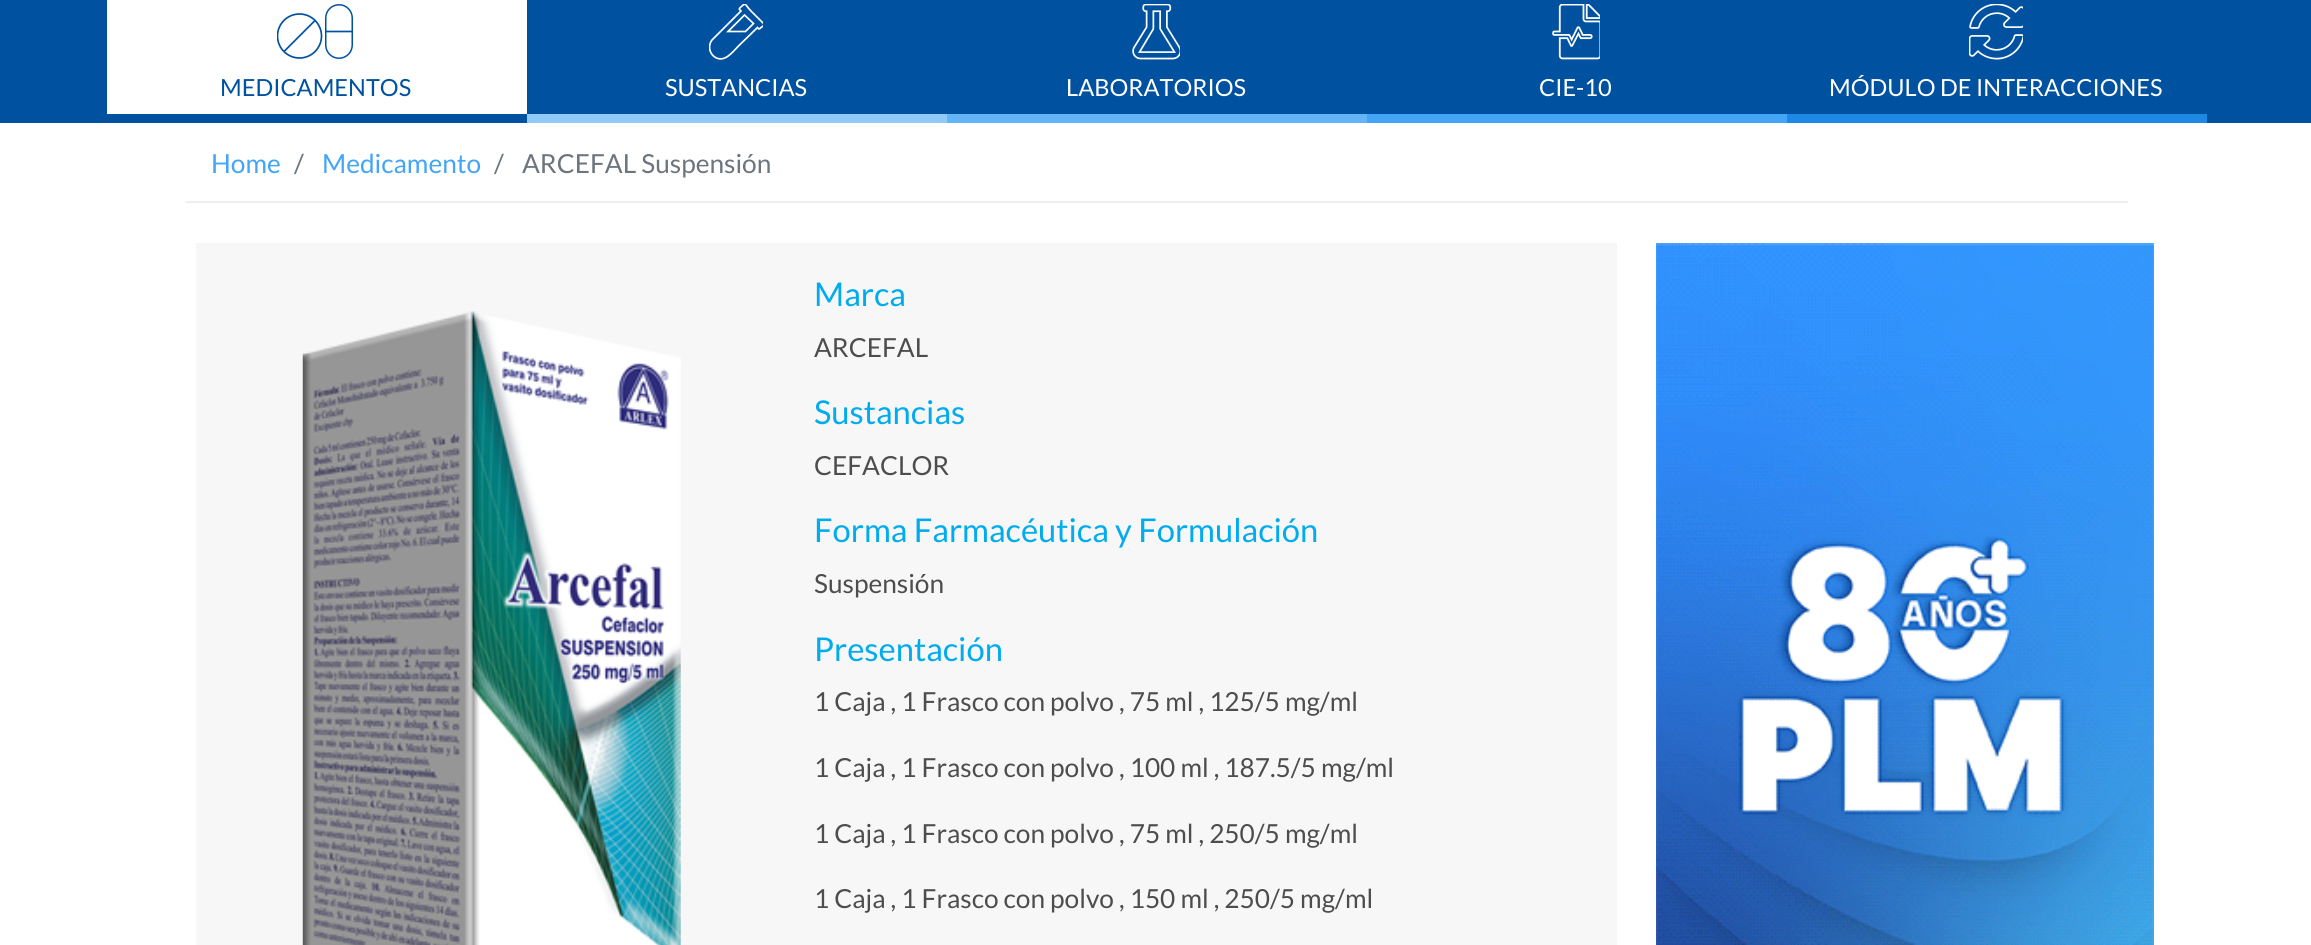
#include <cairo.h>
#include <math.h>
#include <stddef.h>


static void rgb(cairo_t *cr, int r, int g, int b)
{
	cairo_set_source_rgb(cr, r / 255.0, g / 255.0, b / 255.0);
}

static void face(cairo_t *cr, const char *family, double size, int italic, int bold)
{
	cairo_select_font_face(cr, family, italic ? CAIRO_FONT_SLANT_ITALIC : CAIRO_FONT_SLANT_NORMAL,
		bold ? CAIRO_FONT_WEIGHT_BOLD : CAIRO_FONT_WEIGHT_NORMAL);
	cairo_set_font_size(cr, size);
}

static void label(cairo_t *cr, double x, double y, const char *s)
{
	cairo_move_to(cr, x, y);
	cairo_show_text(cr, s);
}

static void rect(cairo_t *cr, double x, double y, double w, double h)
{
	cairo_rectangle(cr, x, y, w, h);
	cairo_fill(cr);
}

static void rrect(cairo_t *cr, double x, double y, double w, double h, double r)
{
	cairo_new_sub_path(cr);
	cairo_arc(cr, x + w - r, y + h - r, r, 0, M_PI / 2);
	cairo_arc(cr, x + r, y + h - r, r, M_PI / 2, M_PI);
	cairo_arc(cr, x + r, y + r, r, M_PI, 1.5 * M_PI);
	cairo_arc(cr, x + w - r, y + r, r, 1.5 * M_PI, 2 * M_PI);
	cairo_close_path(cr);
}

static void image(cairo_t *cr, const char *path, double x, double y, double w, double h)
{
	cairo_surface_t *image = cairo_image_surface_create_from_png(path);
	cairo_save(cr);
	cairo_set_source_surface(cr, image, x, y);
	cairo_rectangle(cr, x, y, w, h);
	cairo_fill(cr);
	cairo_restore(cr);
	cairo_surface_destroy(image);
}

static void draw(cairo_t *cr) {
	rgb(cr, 255, 255, 255);
	cairo_paint(cr);
	rgb(cr, 0, 82, 161);
	rect(cr, 0, 0, 2311, 123);
	rgb(cr, 255, 255, 255);
	rect(cr, 107, 0, 420, 114);
	cairo_save(cr);
	cairo_rectangle(cr, 277, 4, 77, 56);
	cairo_clip(cr);
	cairo_arc(cr, 299.5, 36, 22, 0, 2 * M_PI);
	rgb(cr, 0, 82, 161);
	cairo_set_line_width(cr, 1.7);
	cairo_stroke(cr);
	cairo_restore(cr);
	rrect(cr, 325.75, 4.75, 26.5, 53.5, 13.25);
	rgb(cr, 0, 82, 161);
	cairo_set_line_width(cr, 1.5);
	cairo_stroke(cr);
	cairo_new_path(cr);
	cairo_move_to(cr, 284, 51.5);
	cairo_line_to(cr, 315.5, 20);
	cairo_set_line_width(cr, 1.7);
	cairo_stroke(cr);
	cairo_new_path(cr);
	cairo_move_to(cr, 352.5, 31.5);
	cairo_line_to(cr, 326, 31.5);
	cairo_stroke(cr);
	face(cr, "Lato", 23.6, 0, 0);
	label(cr, 220, 96, "MEDICAMENTOS");
	rgb(cr, 144, 202, 249);
	rect(cr, 527, 114, 420, 9);
	cairo_save(cr);
	cairo_rectangle(cr, 709, 4, 54, 56);
	cairo_clip(cr);
	cairo_new_path(cr);
	cairo_move_to(cr, 763.5, 23.5);
	cairo_line_to(cr, 751, 11);
	cairo_curve_to(cr, 745.5, 5.5, 746, 2, 742, 6);
	cairo_curve_to(cr, 739.5, 8.5, 738, 8.5, 741, 11);
	cairo_line_to(cr, 712, 40);
	cairo_curve_to(cr, 708, 45, 709, 52.5, 714, 56.5);
	cairo_curve_to(cr, 724, 64, 732.5, 52, 738.5, 46);
	cairo_line_to(cr, 757.5, 27.5);
	cairo_curve_to(cr, 759, 29.5, 759, 29.5, 761, 27.5);
	cairo_curve_to(cr, 762, 27, 765, 25, 763.5, 23.5);
	cairo_close_path(cr);
	cairo_move_to(cr, 745.5, 31.5);
	cairo_line_to(cr, 728, 31.5);
	cairo_line_to(cr, 744.5, 15);
	cairo_line_to(cr, 753.5, 23.5);
	cairo_close_path(cr);
	rgb(cr, 255, 255, 255);
	cairo_stroke(cr);
	cairo_restore(cr);
	rgb(cr, 255, 255, 255);
	label(cr, 665, 96, "SUSTANCIAS");
	rgb(cr, 100, 181, 246);
	rect(cr, 947, 114, 420, 9);
	image(cr, "image0.png", 1132, 4, 48, 56);
	rgb(cr, 255, 255, 255);
	label(cr, 1066, 96, "LABORATORIOS");
	rgb(cr, 66, 165, 245);
	rect(cr, 1367, 114, 420, 9);
	image(cr, "image1.png", 1552, 4, 48, 56);
	rgb(cr, 255, 255, 255);
	label(cr, 1539, 96, "CIE-10");
	rgb(cr, 30, 136, 229);
	rect(cr, 1787, 114, 420, 9);
	image(cr, "image2.png", 1969, 4, 54, 56);
	rgb(cr, 255, 255, 255);
	label(cr, 1829, 96, "MÓDULO DE INTERACCIONES");
	rgb(cr, 238, 238, 238);
	rect(cr, 186, 201, 1942, 2);
	face(cr, "Lato", 26.25, 0, 0);
	rgb(cr, 66, 165, 245);
	label(cr, 211, 173, "Home");
	rgb(cr, 108, 117, 125);
	label(cr, 294, 173, "/");
	rgb(cr, 66, 165, 245);
	label(cr, 322, 173, "Medicamento");
	rgb(cr, 108, 117, 125);
	label(cr, 494, 173, "/");
	label(cr, 522, 173, "ARCEFAL Suspensión");
	rgb(cr, 247, 247, 247);
	rect(cr, 196, 243, 1421, 702);
	image(cr, "image3.png", 302, 311, 379, 634);
	face(cr, "Lato", 32.75, 0, 0);
	rgb(cr, 0, 172, 237);
	label(cr, 814, 306, "Marca");
	face(cr, "Lato", 26.25, 0, 0);
	rgb(cr, 77, 77, 77);
	label(cr, 814, 357, "ARCEFAL");
	face(cr, "Lato", 32.75, 0, 0);
	rgb(cr, 0, 172, 237);
	label(cr, 814, 424, "Sustancias");
	face(cr, "Lato", 26.25, 0, 0);
	rgb(cr, 77, 77, 77);
	label(cr, 814, 475, "CEFACLOR");
	face(cr, "Lato", 32.75, 0, 0);
	rgb(cr, 0, 172, 237);
	label(cr, 814, 542, "Forma Farmacéutica y Formulación");
	face(cr, "Lato", 26.25, 0, 0);
	rgb(cr, 77, 77, 77);
	label(cr, 814, 593, "Suspensión");
	face(cr, "Lato", 32.75, 0, 0);
	rgb(cr, 0, 172, 237);
	label(cr, 814, 661, "Presentación");
	face(cr, "Lato", 26.25, 0, 0);
	rgb(cr, 77, 77, 77);
	label(cr, 814, 711, "1 Caja , 1 Frasco con polvo , 75 ml , 125/5 mg/ml");
	label(cr, 814, 777, "1 Caja , 1 Frasco con polvo , 100 ml , 187.5/5 mg/ml");
	label(cr, 814, 843, "1 Caja , 1 Frasco con polvo , 75 ml , 250/5 mg/ml");
	label(cr, 814, 908, "1 Caja , 1 Frasco con polvo , 150 ml , 250/5 mg/ml");
	image(cr, "image4.png", 1656, 243, 498, 702);
}

int main(void) {
	cairo_surface_t *surface = cairo_image_surface_create(CAIRO_FORMAT_RGB24, 2311, 945);
	cairo_t *cr = cairo_create(surface);
	cairo_font_options_t *options = cairo_font_options_create();
	cairo_font_options_set_hint_metrics(options, CAIRO_HINT_METRICS_OFF);
	cairo_font_options_set_hint_style(options, CAIRO_HINT_STYLE_NONE);
	cairo_set_font_options(cr, options);
	cairo_set_miter_limit(cr, 4);
	draw(cr);
	cairo_surface_write_to_png(surface, "render.png");
	cairo_font_options_destroy(options);
	cairo_destroy(cr);
	cairo_surface_destroy(surface);
	return 0;
}
